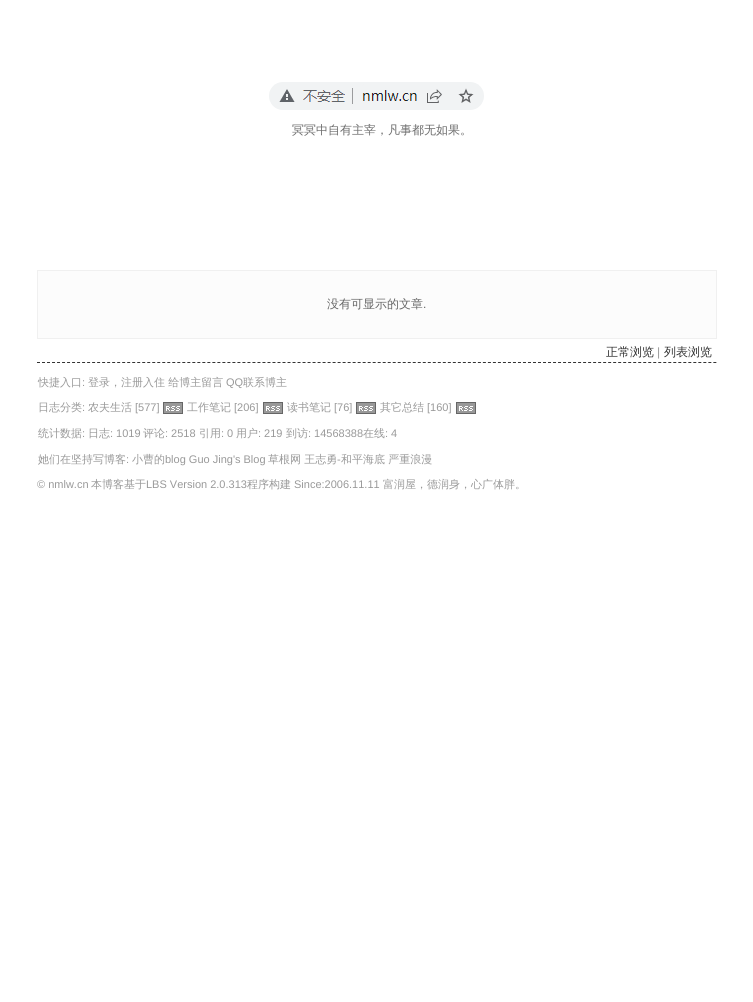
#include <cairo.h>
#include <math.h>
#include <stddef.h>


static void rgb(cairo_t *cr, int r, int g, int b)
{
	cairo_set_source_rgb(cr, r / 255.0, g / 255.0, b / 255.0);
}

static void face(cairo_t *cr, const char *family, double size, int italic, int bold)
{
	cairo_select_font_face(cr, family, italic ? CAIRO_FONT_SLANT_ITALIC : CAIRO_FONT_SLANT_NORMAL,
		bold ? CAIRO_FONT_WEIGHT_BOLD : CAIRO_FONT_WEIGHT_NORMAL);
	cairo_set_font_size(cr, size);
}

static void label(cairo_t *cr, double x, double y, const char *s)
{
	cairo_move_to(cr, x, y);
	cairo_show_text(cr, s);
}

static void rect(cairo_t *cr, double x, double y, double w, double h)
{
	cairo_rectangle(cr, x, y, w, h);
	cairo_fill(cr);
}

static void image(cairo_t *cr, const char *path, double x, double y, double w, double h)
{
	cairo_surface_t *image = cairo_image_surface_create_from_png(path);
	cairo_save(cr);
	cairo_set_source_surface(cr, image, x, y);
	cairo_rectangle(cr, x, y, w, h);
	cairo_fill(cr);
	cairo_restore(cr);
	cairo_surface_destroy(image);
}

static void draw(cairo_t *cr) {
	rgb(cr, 255, 255, 255);
	cairo_paint(cr);
	image(cr, "image0.png", 269, 82, 215, 28);
	face(cr, "WenQuanYi Zen Hei Medium", 12, 0, 0);
	rgb(cr, 109, 109, 109);
	label(cr, 292, 134, "冥冥中自有主宰，凡事都无如果。");
	cairo_rectangle(cr, 37.5, 270.5, 679, 68);
	rgb(cr, 240, 240, 240);
	cairo_set_line_width(cr, 1);
	cairo_stroke(cr);
	rgb(cr, 252, 252, 252);
	rect(cr, 38, 271, 678, 67);
	rgb(cr, 102, 102, 102);
	label(cr, 327, 308, "没有可显示的文章");
	face(cr, "Liberation Sans", 12, 0, 0);
	label(cr, 423, 308, ".");
	face(cr, "WenQuanYi Zen Hei Medium", 12, 0, 0);
	rgb(cr, 51, 51, 51);
	label(cr, 606, 356, "正常浏览");
	face(cr, "Liberation Sans", 12, 0, 0);
	rgb(cr, 153, 153, 153);
	label(cr, 657, 356, "|");
	face(cr, "WenQuanYi Zen Hei Medium", 12, 0, 0);
	rgb(cr, 51, 51, 51);
	label(cr, 664, 356, "列表浏览");
	cairo_new_path(cr);
	cairo_move_to(cr, 37, 362.5);
	cairo_line_to(cr, 717, 362.5);
	cairo_set_dash(cr, (double[]){3, 2.01}, 2, 0);
	cairo_stroke(cr);
	face(cr, "WenQuanYi Zen Hei Medium", 11, 0, 0);
	rgb(cr, 153, 153, 153);
	label(cr, 38, 386, "快捷入口");
	face(cr, "Liberation Sans", 11, 0, 0);
	label(cr, 82, 386, ":");
	face(cr, "WenQuanYi Zen Hei Medium", 11, 0, 0);
	label(cr, 88, 386, "登录，注册入住 给博主留言");
	face(cr, "Liberation Sans", 11, 0, 0);
	label(cr, 226, 386, "QQ");
	face(cr, "WenQuanYi Zen Hei Medium", 11, 0, 0);
	label(cr, 243, 386, "联系博主");
	label(cr, 38, 411, "日志分类");
	face(cr, "Liberation Sans", 11, 0, 0);
	label(cr, 82, 411, ":");
	face(cr, "WenQuanYi Zen Hei Medium", 11, 0, 0);
	label(cr, 88, 411, "农夫生活");
	face(cr, "Liberation Sans", 11, 0, 0);
	label(cr, 135, 411, "[577]");
	image(cr, "image1.png", 163, 402, 20, 12);
	face(cr, "WenQuanYi Zen Hei Medium", 11, 0, 0);
	label(cr, 187, 411, "工作笔记");
	face(cr, "Liberation Sans", 11, 0, 0);
	label(cr, 234, 411, "[206]");
	image(cr, "image1.png", 263, 402, 20, 12);
	face(cr, "WenQuanYi Zen Hei Medium", 11, 0, 0);
	label(cr, 287, 411, "读书笔记");
	face(cr, "Liberation Sans", 11, 0, 0);
	label(cr, 334, 411, "[76]");
	image(cr, "image1.png", 356, 402, 20, 12);
	face(cr, "WenQuanYi Zen Hei Medium", 11, 0, 0);
	label(cr, 380, 411, "其它总结");
	face(cr, "Liberation Sans", 11, 0, 0);
	label(cr, 427, 411, "[160]");
	image(cr, "image1.png", 456, 402, 20, 12);
	face(cr, "WenQuanYi Zen Hei Medium", 11, 0, 0);
	label(cr, 38, 437, "统计数据");
	face(cr, "Liberation Sans", 11, 0, 0);
	label(cr, 82, 437, ":");
	face(cr, "WenQuanYi Zen Hei Medium", 11, 0, 0);
	label(cr, 88, 437, "日志");
	face(cr, "Liberation Sans", 11, 0, 0);
	label(cr, 110, 437, ": 1019");
	face(cr, "WenQuanYi Zen Hei Medium", 11, 0, 0);
	label(cr, 143, 437, "评论");
	face(cr, "Liberation Sans", 11, 0, 0);
	label(cr, 165, 437, ": 2518");
	face(cr, "WenQuanYi Zen Hei Medium", 11, 0, 0);
	label(cr, 199, 437, "引用");
	face(cr, "Liberation Sans", 11, 0, 0);
	label(cr, 221, 437, ": 0");
	face(cr, "WenQuanYi Zen Hei Medium", 11, 0, 0);
	label(cr, 236, 437, "用户");
	face(cr, "Liberation Sans", 11, 0, 0);
	label(cr, 258, 437, ": 219");
	face(cr, "WenQuanYi Zen Hei Medium", 11, 0, 0);
	label(cr, 286, 437, "到访");
	face(cr, "Liberation Sans", 11, 0, 0);
	label(cr, 308, 437, ": 14568388");
	face(cr, "WenQuanYi Zen Hei Medium", 11, 0, 0);
	label(cr, 363, 437, "在线");
	face(cr, "Liberation Sans", 11, 0, 0);
	label(cr, 385, 437, ": 4");
	face(cr, "WenQuanYi Zen Hei Medium", 11, 0, 0);
	label(cr, 38, 463, "她们在坚持写博客");
	face(cr, "Liberation Sans", 11, 0, 0);
	label(cr, 126, 463, ":");
	face(cr, "WenQuanYi Zen Hei Medium", 11, 0, 0);
	label(cr, 132, 463, "小曹的");
	face(cr, "Liberation Sans", 11, 0, 0);
	label(cr, 165, 463, "blog Guo Jing's Blog");
	face(cr, "WenQuanYi Zen Hei Medium", 11, 0, 0);
	label(cr, 268, 463, "草根网 王志勇");
	face(cr, "Liberation Sans", 11, 0, 0);
	label(cr, 337, 463, "-");
	face(cr, "WenQuanYi Zen Hei Medium", 11, 0, 0);
	label(cr, 341, 463, "和平海底 严重浪漫");
	face(cr, "Liberation Sans", 11, 0, 0);
	label(cr, 37, 488, "© nmlw.cn");
	face(cr, "WenQuanYi Zen Hei Medium", 11, 0, 0);
	label(cr, 91, 488, "本博客基于");
	face(cr, "Liberation Sans", 11, 0, 0);
	label(cr, 146, 488, "LBS Version 2.0.313");
	face(cr, "WenQuanYi Zen Hei Medium", 11, 0, 0);
	label(cr, 247, 488, "程序构建");
	face(cr, "Liberation Sans", 11, 0, 0);
	label(cr, 294, 488, "Since:2006.11.11");
	face(cr, "WenQuanYi Zen Hei Medium", 11, 0, 0);
	label(cr, 383, 488, "富润屋，德润身，心广体胖。");
}

int main(void) {
	cairo_surface_t *surface = cairo_image_surface_create(CAIRO_FORMAT_RGB24, 753, 1002);
	cairo_t *cr = cairo_create(surface);
	cairo_font_options_t *options = cairo_font_options_create();
	cairo_font_options_set_hint_metrics(options, CAIRO_HINT_METRICS_OFF);
	cairo_font_options_set_hint_style(options, CAIRO_HINT_STYLE_NONE);
	cairo_set_font_options(cr, options);
	cairo_set_miter_limit(cr, 4);
	draw(cr);
	cairo_surface_write_to_png(surface, "render.png");
	cairo_font_options_destroy(options);
	cairo_destroy(cr);
	cairo_surface_destroy(surface);
	return 0;
}
